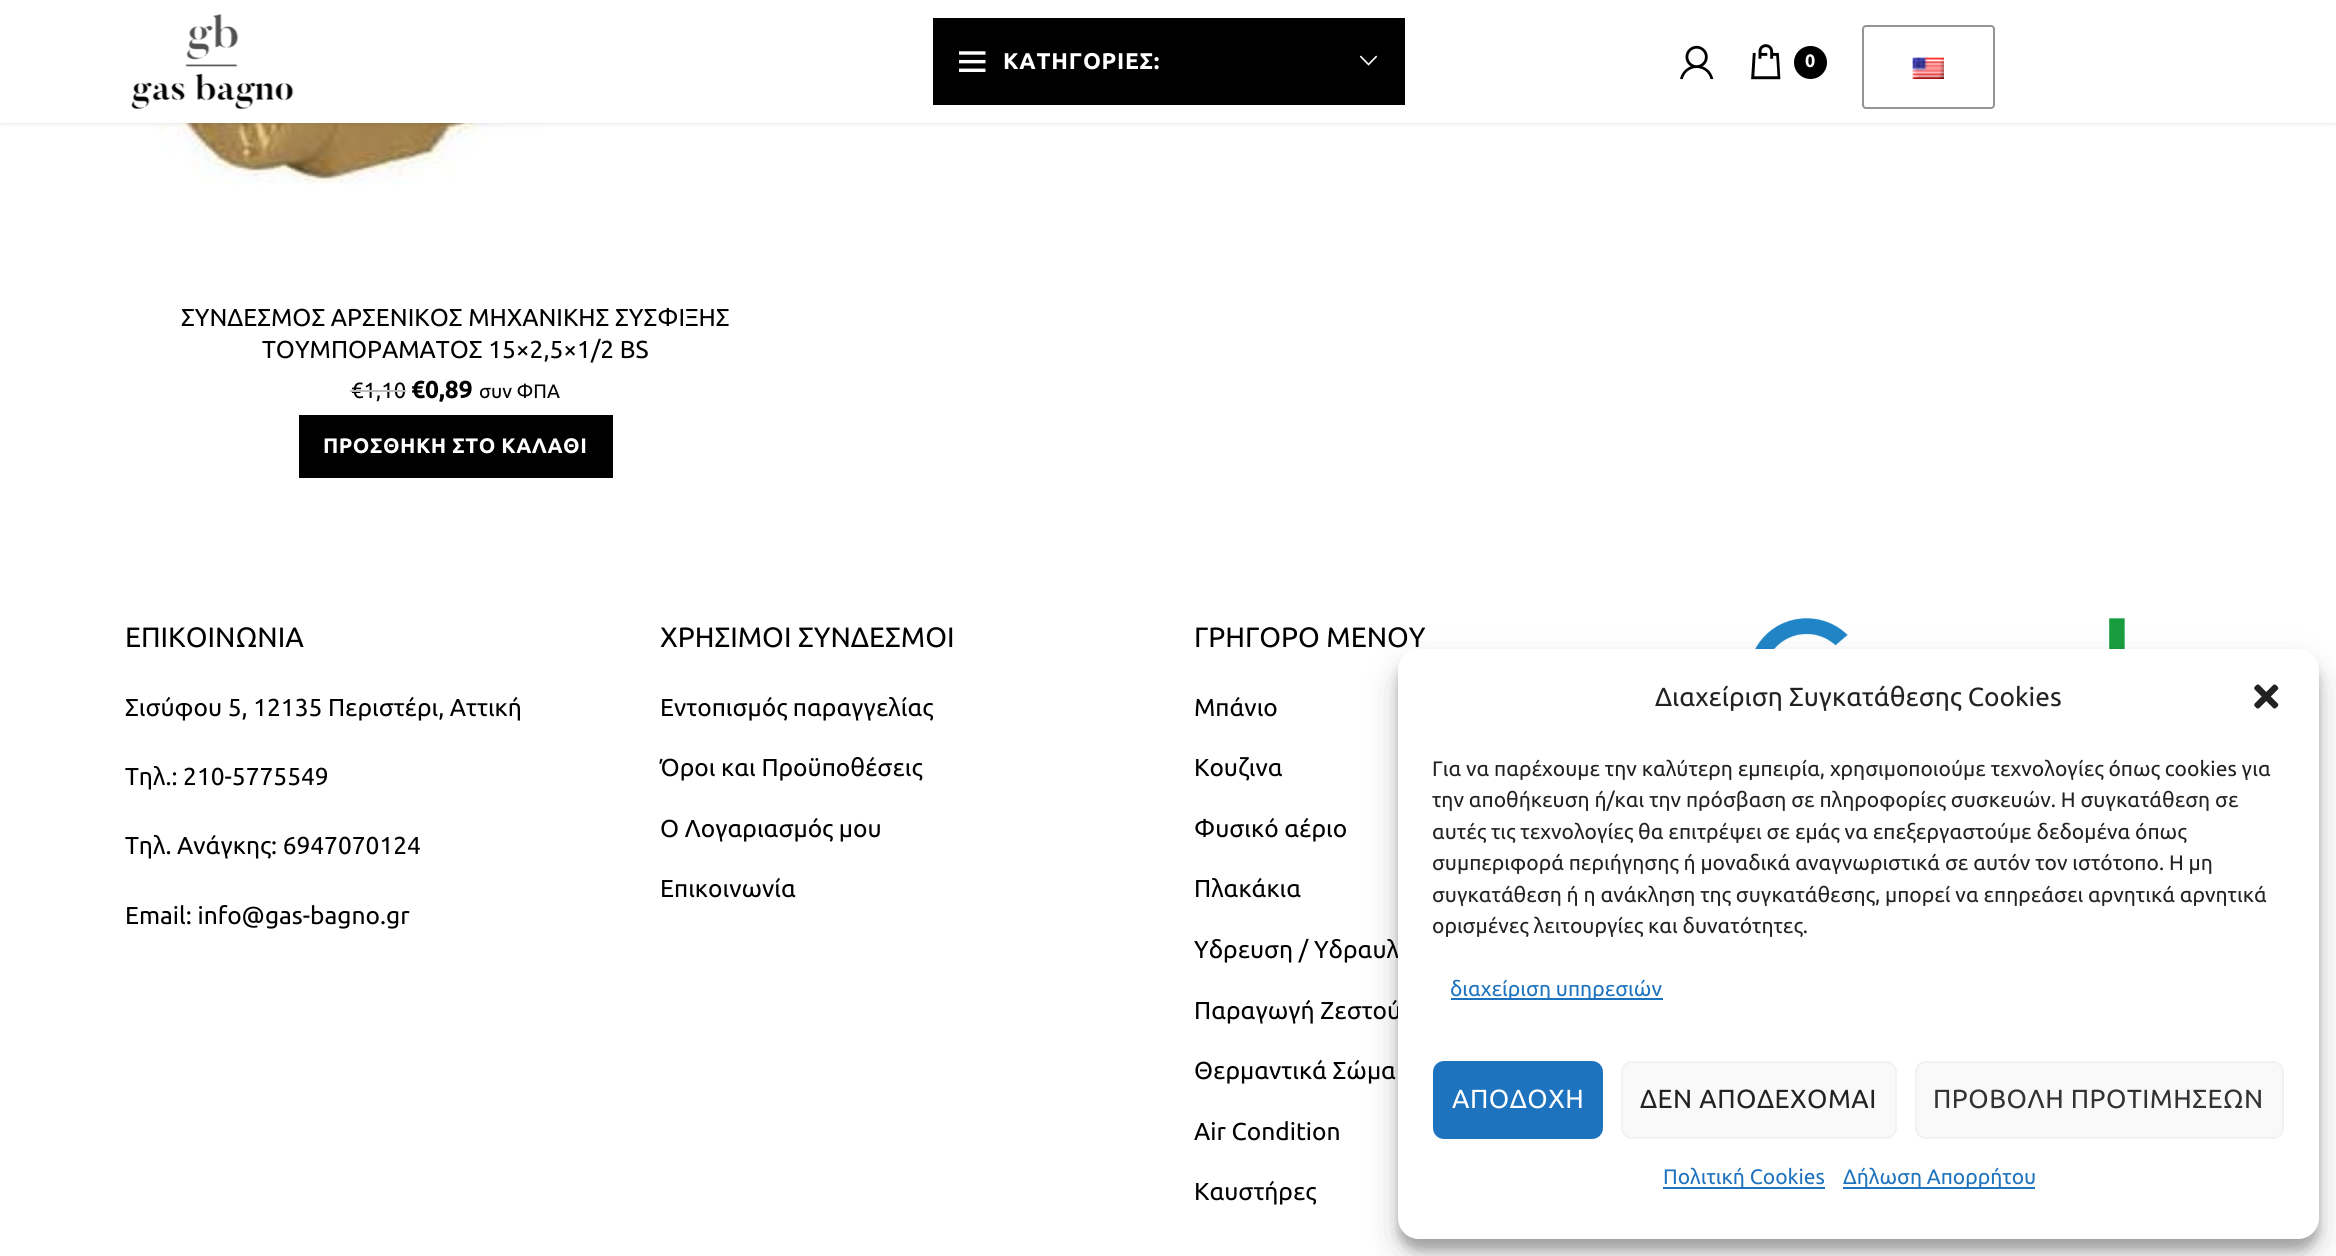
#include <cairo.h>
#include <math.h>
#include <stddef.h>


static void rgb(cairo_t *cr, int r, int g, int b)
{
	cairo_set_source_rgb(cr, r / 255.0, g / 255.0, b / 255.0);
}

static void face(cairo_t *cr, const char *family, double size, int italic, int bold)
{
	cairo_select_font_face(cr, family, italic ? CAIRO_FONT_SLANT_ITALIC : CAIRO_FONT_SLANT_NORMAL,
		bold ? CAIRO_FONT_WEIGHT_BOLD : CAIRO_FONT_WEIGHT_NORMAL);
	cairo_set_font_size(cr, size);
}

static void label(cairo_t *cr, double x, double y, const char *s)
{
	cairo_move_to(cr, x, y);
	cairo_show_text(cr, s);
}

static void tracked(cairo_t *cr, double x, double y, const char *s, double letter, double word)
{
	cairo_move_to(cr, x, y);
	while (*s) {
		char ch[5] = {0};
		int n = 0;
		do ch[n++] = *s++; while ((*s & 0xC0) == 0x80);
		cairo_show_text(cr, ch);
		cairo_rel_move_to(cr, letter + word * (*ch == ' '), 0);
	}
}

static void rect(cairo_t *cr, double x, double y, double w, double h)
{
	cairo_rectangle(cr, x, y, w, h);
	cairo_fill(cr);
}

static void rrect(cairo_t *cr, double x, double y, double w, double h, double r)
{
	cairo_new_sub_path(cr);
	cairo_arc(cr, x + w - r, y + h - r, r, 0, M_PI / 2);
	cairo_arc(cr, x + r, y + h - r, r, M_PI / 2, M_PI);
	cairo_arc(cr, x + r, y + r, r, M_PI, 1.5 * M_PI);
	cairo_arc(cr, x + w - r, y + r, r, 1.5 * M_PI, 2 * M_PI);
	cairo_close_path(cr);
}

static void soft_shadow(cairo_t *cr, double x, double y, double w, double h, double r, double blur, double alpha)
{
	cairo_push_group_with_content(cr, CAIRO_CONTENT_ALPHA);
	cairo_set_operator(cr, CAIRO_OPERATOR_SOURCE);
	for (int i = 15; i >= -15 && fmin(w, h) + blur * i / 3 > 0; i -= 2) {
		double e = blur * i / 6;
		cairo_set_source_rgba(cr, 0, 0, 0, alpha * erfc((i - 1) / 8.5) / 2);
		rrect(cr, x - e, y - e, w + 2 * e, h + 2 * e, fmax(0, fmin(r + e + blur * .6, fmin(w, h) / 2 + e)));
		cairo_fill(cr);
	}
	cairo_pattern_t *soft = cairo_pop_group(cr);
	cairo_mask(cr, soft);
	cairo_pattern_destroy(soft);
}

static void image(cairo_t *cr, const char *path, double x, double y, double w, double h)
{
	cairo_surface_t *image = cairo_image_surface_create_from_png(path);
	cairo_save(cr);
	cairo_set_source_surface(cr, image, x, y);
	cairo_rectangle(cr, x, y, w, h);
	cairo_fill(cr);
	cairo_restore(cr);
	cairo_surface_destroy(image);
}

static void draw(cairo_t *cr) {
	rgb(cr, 255, 255, 255);
	cairo_paint(cr);
	image(cr, "image6.png", 126, 123, 648, 62);
	rgb(cr, 0, 0, 0);
	soft_shadow(cr, 0, 2, 2336, 122, 0, 2.5, 0.1);
	rgb(cr, 255, 255, 255);
	rect(cr, 0, 0, 2336, 123);
	image(cr, "image0.png", 131, 14, 163, 96);
	rgb(cr, 0, 0, 0);
	rect(cr, 933, 18, 472, 87);
	image(cr, "image1.png", 959, 51, 27, 21);
	face(cr, "Ubuntu", 22.75, 0, 1);
	rgb(cr, 255, 255, 255);
	tracked(cr, 1003, 69, "ΚΑΤΗΓΟΡΙΕΣ:", 0.75, 0);
	image(cr, "image2.png", 1359, 55, 19, 11);
	image(cr, "image3.png", 1680, 45, 34, 35);
	image(cr, "image4.png", 1751, 44, 30, 36);
	rgb(cr, 0, 0, 0);
	cairo_arc(cr, 1810.5, 62.5, 16.5, 0, 2 * M_PI);
	cairo_fill(cr);
	face(cr, "Ubuntu", 18, 0, 1);
	rgb(cr, 255, 255, 255);
	label(cr, 1805, 67, "0");
	rrect(cr, 1863, 26, 131, 82, 3);
	rgb(cr, 148, 148, 148);
	cairo_stroke(cr);
	image(cr, "image5.png", 1912, 57, 32, 22);
	face(cr, "Ubuntu", 24.5, 0, 0);
	rgb(cr, 0, 0, 0);
	label(cr, 181, 326, "ΣΥΝΔΕΣΜΟΣ ΑΡΣΕΝΙΚΟΣ ΜΗΧΑΝΙΚΗΣ ΣΥΣΦΙΞΗΣ");
	label(cr, 262, 358, "ΤΟΥΜΠΟΡΑΜΑΤΟΣ 15×2,5×1/2 BS");
	face(cr, "Ubuntu", 22, 0, 0);
	label(cr, 351, 398, "€1,10");
	rgb(cr, 189, 189, 189);
	rect(cr, 350, 390, 56, 2);
	face(cr, "Ubuntu", 24.5, 0, 1);
	rgb(cr, 0, 0, 0);
	label(cr, 411, 398, "€0,89");
	face(cr, "Ubuntu", 19.5, 0, 0);
	label(cr, 479, 398, "συν ΦΠΑ");
	rect(cr, 299, 415, 314, 63);
	face(cr, "Ubuntu", 21, 0, 1);
	rgb(cr, 255, 255, 255);
	tracked(cr, 323, 453, "ΠΡΟΣΘΗΚΗ ΣΤΟ ΚΑΛΑΘΙ", 0.5, 0);
	face(cr, "Ubuntu", 28, 0, 0);
	rgb(cr, 0, 0, 0);
	label(cr, 125, 647, "ΕΠΙΚΟΙΝΩΝΙΑ");
	face(cr, "Ubuntu", 24.5, 0, 0);
	label(cr, 125, 716, "Σισύφου 5, 12135 Περιστέρι, Αττική");
	label(cr, 125, 785, "Τηλ.: 210-5775549");
	label(cr, 125, 854, "Τηλ. Ανάγκης: 6947070124");
	label(cr, 125, 924, "Email: info@gas-bagno.gr");
	face(cr, "Ubuntu", 28, 0, 0);
	label(cr, 660, 647, "ΧΡΗΣΙΜΟΙ ΣΥΝΔΕΣΜΟΙ");
	face(cr, "Ubuntu", 24.5, 0, 0);
	label(cr, 660, 716, "Εντοπισμός παραγγελίας");
	label(cr, 660, 776, "Όροι και Προϋποθέσεις");
	label(cr, 660, 837, "Ο Λογαριασμός μου");
	label(cr, 660, 897, "Επικοινωνία");
	face(cr, "Ubuntu", 28, 0, 0);
	label(cr, 1194, 647, "ΓΡΗΓΟΡΟ ΜΕΝΟΥ");
	face(cr, "Ubuntu", 24.5, 0, 0);
	label(cr, 1194, 716, "Μπάνιο");
	label(cr, 1194, 776, "Κουζινα");
	label(cr, 1194, 837, "Φυσικό αέριο");
	label(cr, 1194, 897, "Πλακάκια");
	label(cr, 1194, 958, "Υδρευση / Υδραυλ");
	label(cr, 1194, 1019, "Παραγωγή Ζεστού");
	label(cr, 1194, 1079, "Θερμαντικά Σώμα");
	label(cr, 1194, 1140, "Air Condition");
	label(cr, 1194, 1200, "Καυστήρες");
	image(cr, "image7.png", 1755, 618, 370, 31);
	rgb(cr, 0, 0, 0);
	soft_shadow(cr, 1398, 660, 921, 590, 21, 5, 0.23);
	soft_shadow(cr, 1398, 667, 921, 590, 21, 17.5, 0.19);
	rgb(cr, 255, 255, 255);
	rrect(cr, 1398, 649, 921, 590, 21);
	cairo_fill(cr);
	face(cr, "Ubuntu", 26.25, 0, 0);
	rgb(cr, 34, 34, 34);
	label(cr, 1655, 706, "Διαχείριση Συγκατάθεσης Cookies");
	image(cr, "image8.png", 2254, 684, 25, 25);
	face(cr, "Ubuntu", 21, 0, 0);
	label(cr, 1432, 776, "Για να παρέχουμε την καλύτερη εμπειρία, χρησιμοποιούμε τεχνολογίες όπως cookies για");
	label(cr, 1432, 807, "την αποθήκευση ή/και την πρόσβαση σε πληροφορίες συσκευών. Η συγκατάθεση σε");
	label(cr, 1432, 839, "αυτές τις τεχνολογίες θα επιτρέψει σε εμάς να επεξεργαστούμε δεδομένα όπως");
	label(cr, 1432, 870, "συμπεριφορά περιήγησης ή μοναδικά αναγνωριστικά σε αυτόν τον ιστότοπο. Η μη");
	label(cr, 1432, 902, "συγκατάθεση ή η ανάκληση της συγκατάθεσης, μπορεί να επηρεάσει αρνητικά αρνητικά");
	label(cr, 1432, 933, "ορισμένες λειτουργίες και δυνατότητες.");
	rgb(cr, 30, 115, 190);
	rect(cr, 1451, 998, 212, 2);
	label(cr, 1450, 996, "διαχείριση υπηρεσιών");
	rrect(cr, 1434, 1062, 168, 76, 10);
	cairo_fill_preserve(cr);
	cairo_stroke(cr);
	face(cr, "Ubuntu", 26.25, 0, 0);
	rgb(cr, 255, 255, 255);
	tracked(cr, 1452, 1108, "ΑΠΟΔΟΧΗ", 0.5, 0);
	rgb(cr, 249, 249, 249);
	rrect(cr, 1622, 1062, 274, 76, 10);
	cairo_fill_preserve(cr);
	rgb(cr, 242, 242, 242);
	cairo_stroke(cr);
	rgb(cr, 34, 34, 34);
	tracked(cr, 1640, 1108, "ΔΕΝ ΑΠΟΔΕΧΟΜΑΙ", 0.5, 0);
	rgb(cr, 249, 249, 249);
	rrect(cr, 1916, 1062, 367, 76, 10);
	cairo_fill_preserve(cr);
	rgb(cr, 242, 242, 242);
	cairo_stroke(cr);
	rgb(cr, 51, 51, 51);
	tracked(cr, 1933, 1108, "ΠΡΟΒΟΛΗ ΠΡΟΤΙΜΗΣΕΩΝ", 0.5, 0);
	rgb(cr, 30, 115, 190);
	rect(cr, 1663, 1187, 162, 2);
	face(cr, "Ubuntu", 21, 0, 0);
	label(cr, 1663, 1184, "Πολιτική Cookies");
	rect(cr, 1843, 1187, 192, 2);
	label(cr, 1843, 1184, "Δήλωση Απορρήτου");
}

int main(void) {
	cairo_surface_t *surface = cairo_image_surface_create(CAIRO_FORMAT_RGB24, 2336, 1256);
	cairo_t *cr = cairo_create(surface);
	cairo_font_options_t *options = cairo_font_options_create();
	cairo_font_options_set_hint_metrics(options, CAIRO_HINT_METRICS_OFF);
	cairo_font_options_set_hint_style(options, CAIRO_HINT_STYLE_NONE);
	cairo_set_font_options(cr, options);
	cairo_set_miter_limit(cr, 4);
	draw(cr);
	cairo_surface_write_to_png(surface, "render.png");
	cairo_font_options_destroy(options);
	cairo_destroy(cr);
	cairo_surface_destroy(surface);
	return 0;
}
